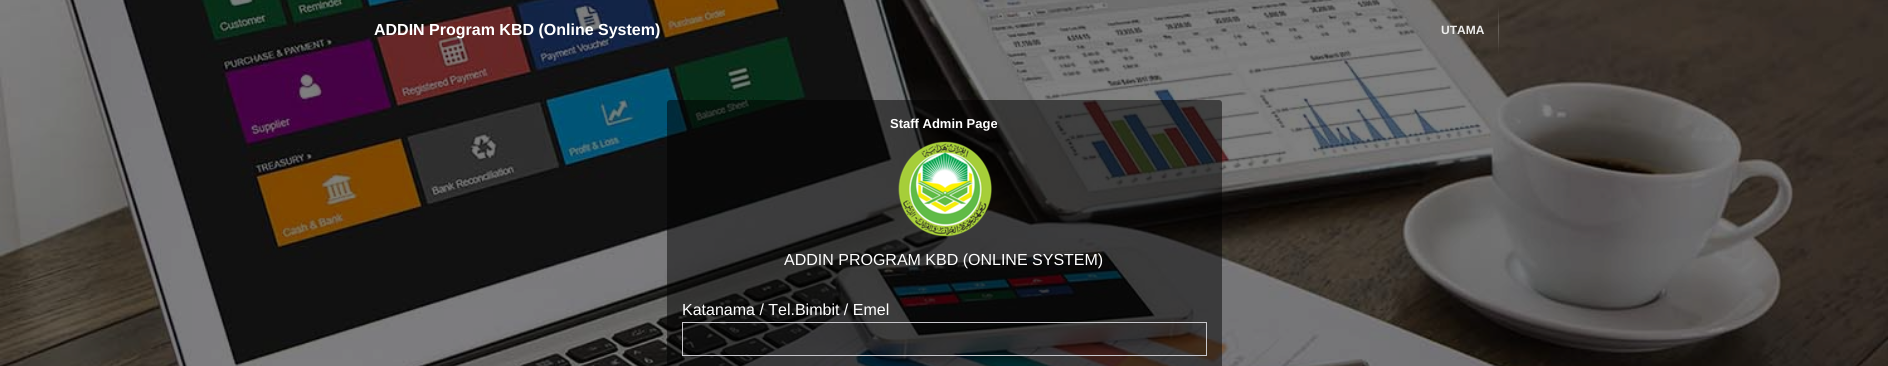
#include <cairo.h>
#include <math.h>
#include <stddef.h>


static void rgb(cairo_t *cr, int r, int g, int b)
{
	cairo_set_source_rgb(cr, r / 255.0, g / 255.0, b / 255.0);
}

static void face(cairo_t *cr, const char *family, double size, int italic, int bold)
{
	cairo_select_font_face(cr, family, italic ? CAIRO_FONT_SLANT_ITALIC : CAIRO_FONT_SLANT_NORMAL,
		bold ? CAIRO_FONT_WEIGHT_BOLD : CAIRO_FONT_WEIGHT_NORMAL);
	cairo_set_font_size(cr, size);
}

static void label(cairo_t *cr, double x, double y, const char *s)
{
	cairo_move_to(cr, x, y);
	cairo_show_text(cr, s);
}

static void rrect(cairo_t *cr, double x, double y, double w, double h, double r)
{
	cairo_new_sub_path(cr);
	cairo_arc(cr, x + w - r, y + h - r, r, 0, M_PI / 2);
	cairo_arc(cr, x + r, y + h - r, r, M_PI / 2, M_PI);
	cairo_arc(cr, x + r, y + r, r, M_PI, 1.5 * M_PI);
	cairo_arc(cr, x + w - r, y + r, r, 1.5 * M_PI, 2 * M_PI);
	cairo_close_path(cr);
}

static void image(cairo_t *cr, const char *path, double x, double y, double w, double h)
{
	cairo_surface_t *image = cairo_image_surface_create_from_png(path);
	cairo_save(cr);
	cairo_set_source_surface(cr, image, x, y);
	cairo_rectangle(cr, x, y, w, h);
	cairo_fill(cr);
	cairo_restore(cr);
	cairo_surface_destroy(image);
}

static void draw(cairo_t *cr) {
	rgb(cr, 255, 255, 255);
	cairo_paint(cr);
	image(cr, "image0.png", 0, 0, 1888, 366);
	face(cr, "Liberation Sans", 16, 0, 1);
	rgb(cr, 255, 255, 255);
	label(cr, 374, 35, "ADDIN Program KBD (Online System)");
	face(cr, "Liberation Sans", 12, 0, 1);
	rgb(cr, 237, 237, 236);
	label(cr, 1441, 34, "UTAMA");
	cairo_set_source_rgba(cr, 0, 0, 0, 0.5);
	rrect(cr, 667, 100, 555, 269, 3);
	cairo_fill(cr);
	face(cr, "Liberation Sans", 13, 0, 1);
	rgb(cr, 255, 255, 255);
	label(cr, 890, 128, "Staff Admin Page");
	image(cr, "image1.png", 898, 141, 94, 96);
	face(cr, "Liberation Sans", 16, 0, 0);
	label(cr, 784, 265, "ADDIN PROGRAM KBD (ONLINE SYSTEM)");
	label(cr, 682, 315, "Katanama / Tel.Bimbit / Emel");
	cairo_rectangle(cr, 682.5, 322.5, 524, 33);
	rgb(cr, 200, 199, 204);
	cairo_set_line_width(cr, 1);
	cairo_stroke(cr);
}

int main(void) {
	cairo_surface_t *surface = cairo_image_surface_create(CAIRO_FORMAT_RGB24, 1888, 366);
	cairo_t *cr = cairo_create(surface);
	cairo_font_options_t *options = cairo_font_options_create();
	cairo_font_options_set_hint_metrics(options, CAIRO_HINT_METRICS_OFF);
	cairo_font_options_set_hint_style(options, CAIRO_HINT_STYLE_NONE);
	cairo_set_font_options(cr, options);
	cairo_set_miter_limit(cr, 4);
	draw(cr);
	cairo_surface_write_to_png(surface, "render.png");
	cairo_font_options_destroy(options);
	cairo_destroy(cr);
	cairo_surface_destroy(surface);
	return 0;
}
